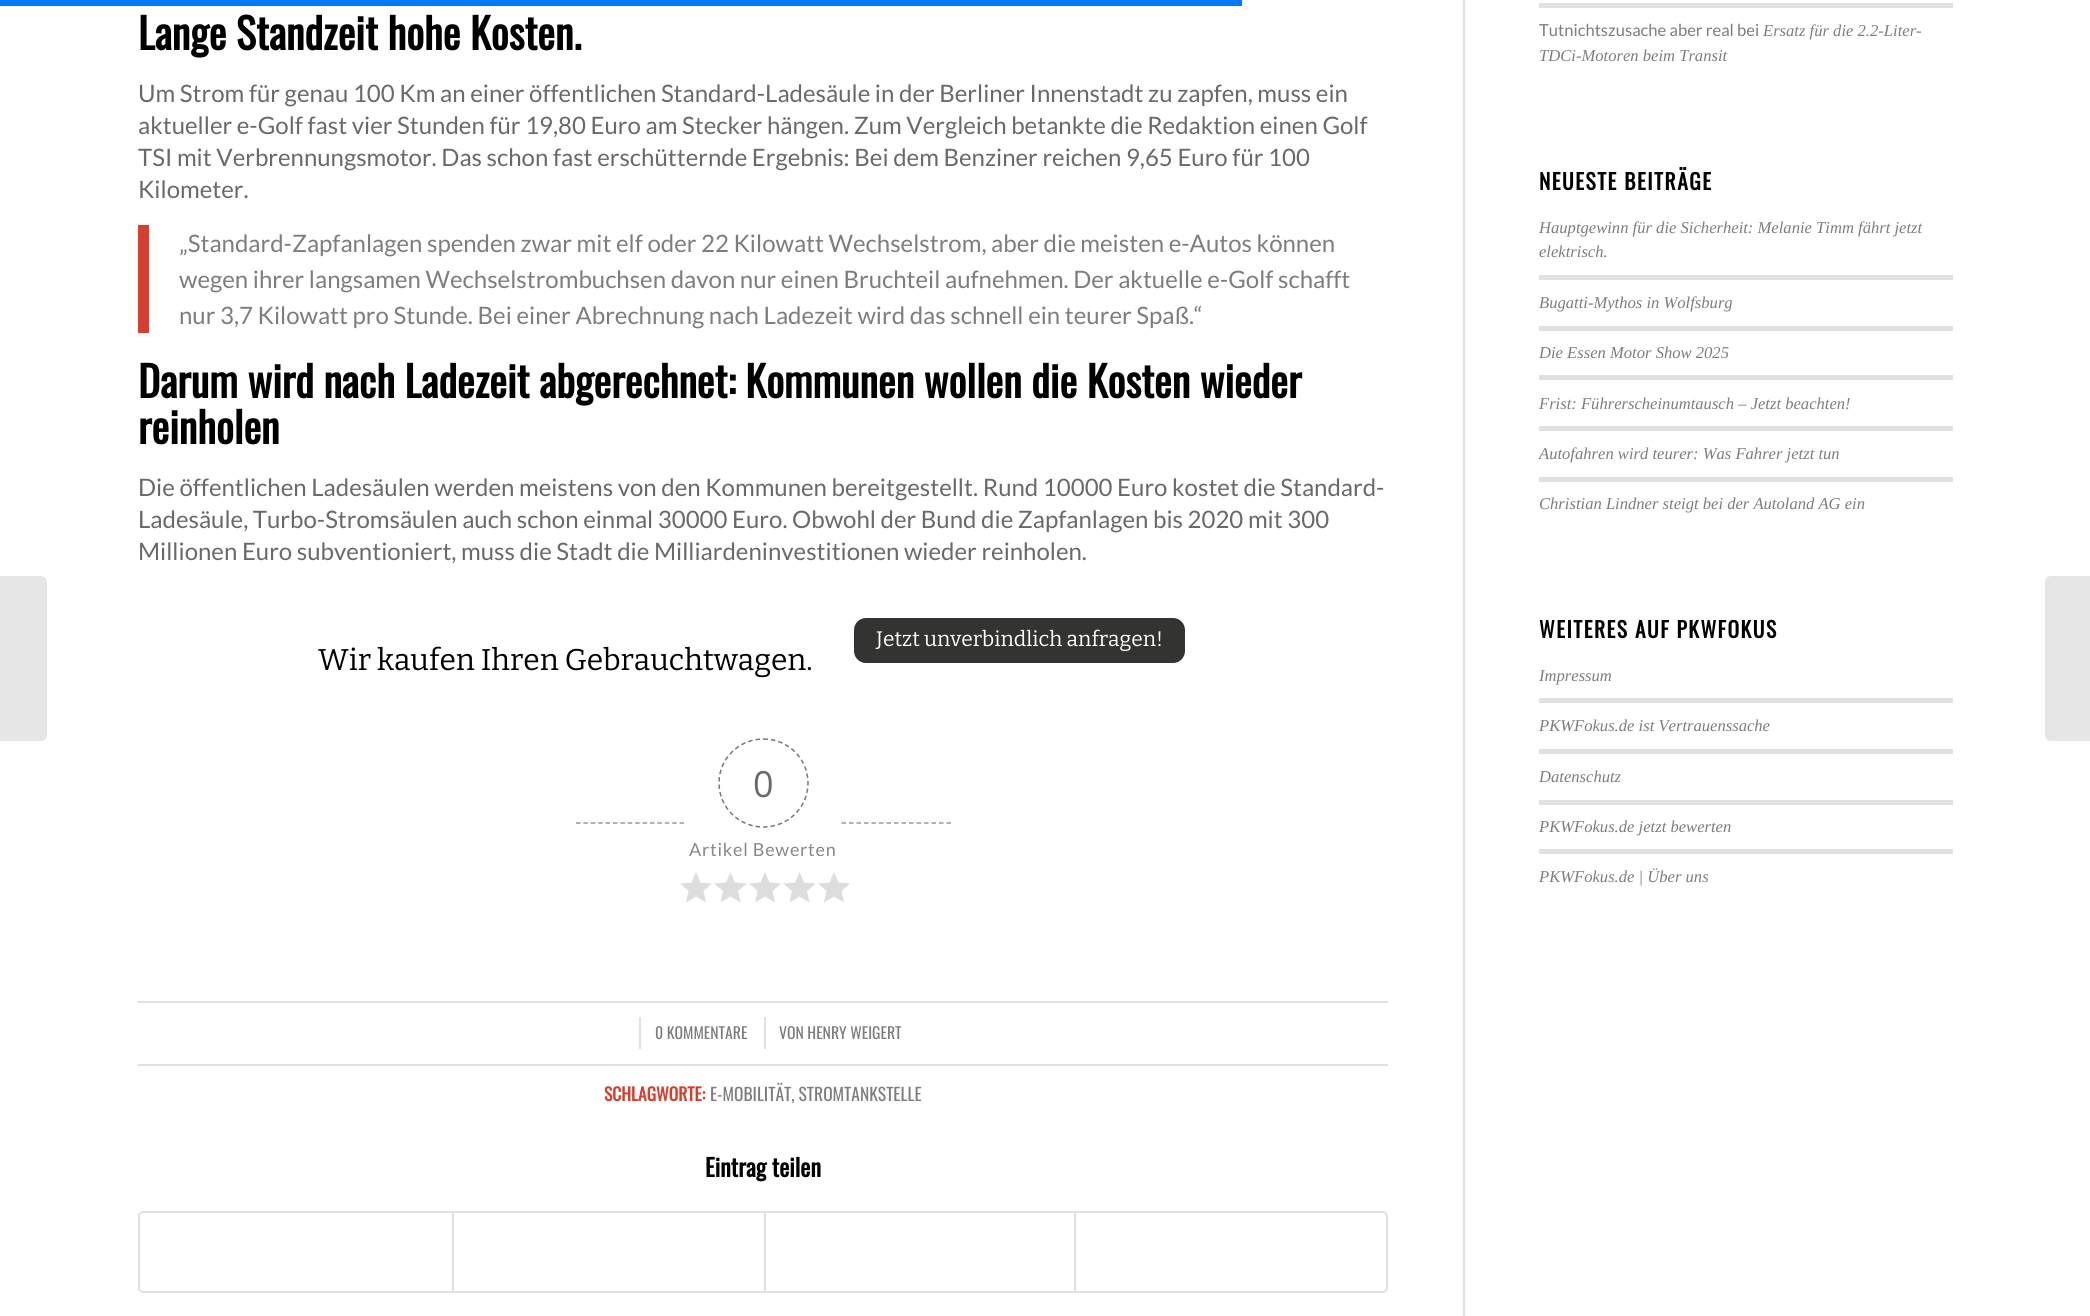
#include <cairo.h>
#include <math.h>
#include <stddef.h>


static void rgb(cairo_t *cr, int r, int g, int b)
{
	cairo_set_source_rgb(cr, r / 255.0, g / 255.0, b / 255.0);
}

static void face(cairo_t *cr, const char *family, double size, int italic, int bold)
{
	cairo_select_font_face(cr, family, italic ? CAIRO_FONT_SLANT_ITALIC : CAIRO_FONT_SLANT_NORMAL,
		bold ? CAIRO_FONT_WEIGHT_BOLD : CAIRO_FONT_WEIGHT_NORMAL);
	cairo_set_font_size(cr, size);
}

static void label(cairo_t *cr, double x, double y, const char *s)
{
	cairo_move_to(cr, x, y);
	cairo_show_text(cr, s);
}

static void tracked(cairo_t *cr, double x, double y, const char *s, double letter, double word)
{
	cairo_move_to(cr, x, y);
	while (*s) {
		char ch[5] = {0};
		int n = 0;
		do ch[n++] = *s++; while ((*s & 0xC0) == 0x80);
		cairo_show_text(cr, ch);
		cairo_rel_move_to(cr, letter + word * (*ch == ' '), 0);
	}
}

static void rect(cairo_t *cr, double x, double y, double w, double h)
{
	cairo_rectangle(cr, x, y, w, h);
	cairo_fill(cr);
}

static void rrect(cairo_t *cr, double x, double y, double w, double h, double r)
{
	cairo_new_sub_path(cr);
	cairo_arc(cr, x + w - r, y + h - r, r, 0, M_PI / 2);
	cairo_arc(cr, x + r, y + h - r, r, M_PI / 2, M_PI);
	cairo_arc(cr, x + r, y + r, r, M_PI, 1.5 * M_PI);
	cairo_arc(cr, x + w - r, y + r, r, 1.5 * M_PI, 2 * M_PI);
	cairo_close_path(cr);
}

static void draw(cairo_t *cr) {
	rgb(cr, 255, 255, 255);
	cairo_paint(cr);
	rgb(cr, 0, 123, 255);
	rect(cr, 0, 0, 1242, 6);
	rgb(cr, 230, 230, 230);
	cairo_new_path(cr);
	cairo_move_to(cr, 0, 576);
	cairo_line_to(cr, 41, 576);
	cairo_curve_to(cr, 44.5, 576, 47, 578.5, 47, 582);
	cairo_line_to(cr, 47, 735);
	cairo_curve_to(cr, 47, 738.5, 44.5, 741, 41, 741);
	cairo_line_to(cr, 0, 741);
	cairo_close_path(cr);
	cairo_fill(cr);
	rgb(cr, 225, 225, 225);
	rect(cr, 1463, 0, 2, 1316);
	face(cr, "Oswald", 42, 0, 1);
	rgb(cr, 0, 0, 0);
	label(cr, 138, 50, "Lange Standzeit hohe Kosten.");
	face(cr, "Lato", 24, 0, 0);
	rgb(cr, 105, 105, 105);
	label(cr, 138, 102, "Um Strom für genau 100 Km an einer öffentlichen Standard-Ladesäule in der Berliner Innenstadt zu zapfen, muss ein");
	label(cr, 138, 134, "aktueller e-Golf fast vier Stunden für 19,80 Euro am Stecker hängen. Zum Vergleich betankte die Redaktion einen Golf");
	label(cr, 138, 166, "TSI mit Verbrennungsmotor. Das schon fast erschütternde Ergebnis: Bei dem Benziner reichen 9,65 Euro für 100");
	label(cr, 138, 198, "Kilometer.");
	rgb(cr, 214, 62, 45);
	rect(cr, 138, 225, 11, 108);
	rgb(cr, 125, 125, 125);
	label(cr, 179, 252, "„Standard-Zapfanlagen spenden zwar mit elf oder 22 Kilowatt Wechselstrom, aber die meisten e-Autos können");
	label(cr, 179, 288, "wegen ihrer langsamen Wechselstrombuchsen davon nur einen Bruchteil aufnehmen. Der aktuelle e-Golf schafft");
	label(cr, 179, 324, "nur 3,7 Kilowatt pro Stunde. Bei einer Abrechnung nach Ladezeit wird das schnell ein teurer Spaß.“");
	face(cr, "Oswald", 42, 0, 1);
	rgb(cr, 0, 0, 0);
	label(cr, 138, 398, "Darum wird nach Ladezeit abgerechnet: Kommunen wollen die Kosten wieder");
	label(cr, 138, 444, "reinholen");
	face(cr, "Lato", 24, 0, 0);
	rgb(cr, 105, 105, 105);
	label(cr, 138, 496, "Die öffentlichen Ladesäulen werden meistens von den Kommunen bereitgestellt. Rund 10000 Euro kostet die Standard-");
	label(cr, 138, 528, "Ladesäule, Turbo-Stromsäulen auch schon einmal 30000 Euro. Obwohl der Bund die Zapfanlagen bis 2020 mit 300");
	label(cr, 138, 560, "Millionen Euro subventioniert, muss die Stadt die Milliardeninvestitionen wieder reinholen.");
	rgb(cr, 51, 51, 50);
	rrect(cr, 854, 618, 331, 45, 12);
	cairo_fill(cr);
	face(cr, "Bitter", 21, 0, 0);
	rgb(cr, 255, 255, 255);
	label(cr, 876, 646, "Jetzt unverbindlich anfragen!");
	face(cr, "Bitter", 30, 0, 0);
	rgb(cr, 0, 0, 0);
	label(cr, 318, 670, "Wir kaufen Ihren Gebrauchtwagen.");
	cairo_new_path(cr);
	cairo_move_to(cr, 576, 823);
	cairo_line_to(cr, 684, 823);
	rgb(cr, 153, 153, 153);
	cairo_set_line_width(cr, 1.5);
	cairo_set_dash(cr, (double[]){4.5, 2.9}, 2, 0);
	cairo_stroke(cr);
	cairo_new_path(cr);
	cairo_move_to(cr, 763.5, 739);
	cairo_curve_to(cr, 788, 739, 808, 758.5, 808, 783);
	cairo_curve_to(cr, 808, 807.5, 788, 827, 763.5, 827);
	cairo_curve_to(cr, 739, 827, 719, 807.5, 719, 783);
	cairo_curve_to(cr, 719, 758.5, 739, 739, 763.5, 739);
	cairo_close_path(cr);
	rgb(cr, 119, 119, 119);
	cairo_set_dash(cr, (double[]){4.5, 3}, 2, 0);
	cairo_stroke(cr);
	face(cr, "Open Sans", 36, 0, 0);
	rgb(cr, 105, 105, 105);
	label(cr, 753, 797, "0");
	face(cr, "Lato", 18, 0, 0);
	rgb(cr, 136, 136, 136);
	tracked(cr, 689, 856, "Artikel Bewerten", 0.75, 0);
	rgb(cr, 221, 221, 221);
	cairo_new_path(cr);
	cairo_move_to(cr, 696, 896.5);
	cairo_line_to(cr, 706, 902.5);
	cairo_line_to(cr, 703.5, 891);
	cairo_line_to(cr, 712, 883.5);
	cairo_line_to(cr, 700.5, 882.5);
	cairo_line_to(cr, 696, 872);
	cairo_line_to(cr, 691.5, 882.5);
	cairo_line_to(cr, 680, 883.5);
	cairo_line_to(cr, 688.5, 891);
	cairo_line_to(cr, 686, 902.5);
	cairo_close_path(cr);
	cairo_fill(cr);
	cairo_new_path(cr);
	cairo_move_to(cr, 730.5, 896.5);
	cairo_line_to(cr, 740.5, 902.5);
	cairo_line_to(cr, 738, 891);
	cairo_line_to(cr, 747, 883.5);
	cairo_line_to(cr, 735, 882.5);
	cairo_line_to(cr, 730.5, 872);
	cairo_line_to(cr, 726, 882.5);
	cairo_line_to(cr, 714, 883.5);
	cairo_line_to(cr, 723, 891);
	cairo_line_to(cr, 720.5, 902.5);
	cairo_close_path(cr);
	cairo_fill(cr);
	cairo_new_path(cr);
	cairo_move_to(cr, 765, 896.5);
	cairo_line_to(cr, 775, 902.5);
	cairo_line_to(cr, 772.5, 891);
	cairo_line_to(cr, 781, 883.5);
	cairo_line_to(cr, 769.5, 882.5);
	cairo_line_to(cr, 765, 872);
	cairo_line_to(cr, 760.5, 882.5);
	cairo_line_to(cr, 749, 883.5);
	cairo_line_to(cr, 757.5, 891);
	cairo_line_to(cr, 755, 902.5);
	cairo_close_path(cr);
	cairo_fill(cr);
	cairo_new_path(cr);
	cairo_move_to(cr, 799.5, 896.5);
	cairo_line_to(cr, 809.5, 902.5);
	cairo_line_to(cr, 807, 891);
	cairo_line_to(cr, 816, 883.5);
	cairo_line_to(cr, 804, 882.5);
	cairo_line_to(cr, 799.5, 872);
	cairo_line_to(cr, 795, 882.5);
	cairo_line_to(cr, 783, 883.5);
	cairo_line_to(cr, 792, 891);
	cairo_line_to(cr, 789.5, 902.5);
	cairo_close_path(cr);
	cairo_fill(cr);
	cairo_new_path(cr);
	cairo_move_to(cr, 834, 896.5);
	cairo_line_to(cr, 844, 902.5);
	cairo_line_to(cr, 841.5, 891);
	cairo_line_to(cr, 850, 883.5);
	cairo_line_to(cr, 838.5, 882.5);
	cairo_line_to(cr, 834, 872);
	cairo_line_to(cr, 829.5, 882.5);
	cairo_line_to(cr, 818, 883.5);
	cairo_line_to(cr, 826.5, 891);
	cairo_line_to(cr, 824, 902.5);
	cairo_close_path(cr);
	cairo_fill(cr);
	cairo_new_path(cr);
	cairo_move_to(cr, 841.5, 823);
	cairo_line_to(cr, 951, 823);
	rgb(cr, 153, 153, 153);
	cairo_stroke(cr);
	rgb(cr, 225, 225, 225);
	rect(cr, 138, 1001, 1250, 2);
	rect(cr, 138, 1064, 1250, 2);
	rect(cr, 639, 1017, 2, 32);
	face(cr, "Oswald", 15.75, 0, 0);
	rgb(cr, 125, 125, 125);
	label(cr, 655, 1039, "0 KOMMENTARE");
	rgb(cr, 225, 225, 225);
	rect(cr, 764, 1017, 2, 32);
	rgb(cr, 125, 125, 125);
	label(cr, 779, 1039, "VON HENRY WEIGERT");
	face(cr, "Oswald", 17.5, 0, 1);
	rgb(cr, 214, 62, 45);
	label(cr, 604, 1101, "SCHLAGWORTE:");
	face(cr, "Oswald", 17.5, 0, 0);
	rgb(cr, 125, 125, 125);
	label(cr, 710, 1101, "E-MOBILITÄT, STROMTANKSTELLE");
	face(cr, "Oswald", 24, 0, 1);
	rgb(cr, 0, 0, 0);
	label(cr, 705, 1177, "Eintrag teilen");
	rrect(cr, 139, 1212, 1248, 80, 4);
	rgb(cr, 225, 225, 225);
	cairo_set_line_width(cr, 2);
	cairo_set_dash(cr, NULL, 0, 0);
	cairo_stroke(cr);
	rect(cr, 452, 1212, 2, 80);
	rect(cr, 764, 1212, 2, 80);
	rect(cr, 1074, 1212, 2, 80);
	rect(cr, 1539, 3, 414, 5);
	face(cr, "Lato", 16.6, 0, 0);
	rgb(cr, 125, 125, 125);
	label(cr, 1539, 36, "Tutnichtszusache aber real bei");
	face(cr, "Liberation Serif", 16.6, 1, 0);
	label(cr, 1763, 36, "Ersatz für die 2.2-Liter-");
	label(cr, 1539, 61, "TDCi-Motoren beim Transit");
	face(cr, "Oswald", 21.5, 0, 1);
	rgb(cr, 0, 0, 0);
	tracked(cr, 1539, 190, "NEUESTE BEITRÄGE", 1.5, 0);
	face(cr, "Liberation Serif", 16.6, 1, 0);
	rgb(cr, 125, 125, 125);
	label(cr, 1539, 233, "Hauptgewinn für die Sicherheit: Melanie Timm fährt jetzt");
	label(cr, 1539, 257, "elektrisch.");
	rgb(cr, 225, 225, 225);
	rect(cr, 1539, 275, 414, 5);
	rgb(cr, 125, 125, 125);
	label(cr, 1539, 308, "Bugatti-Mythos in Wolfsburg");
	rgb(cr, 225, 225, 225);
	rect(cr, 1539, 326, 414, 5);
	rgb(cr, 125, 125, 125);
	label(cr, 1539, 358, "Die Essen Motor Show 2025");
	rgb(cr, 225, 225, 225);
	rect(cr, 1539, 375, 414, 5);
	rgb(cr, 125, 125, 125);
	label(cr, 1539, 409, "Frist: Führerscheinumtausch – Jetzt beachten!");
	rgb(cr, 225, 225, 225);
	rect(cr, 1539, 426, 414, 5);
	rgb(cr, 125, 125, 125);
	label(cr, 1539, 459, "Autofahren wird teurer: Was Fahrer jetzt tun");
	rgb(cr, 225, 225, 225);
	rect(cr, 1539, 477, 414, 5);
	rgb(cr, 125, 125, 125);
	label(cr, 1539, 509, "Christian Lindner steigt bei der Autoland AG ein");
	face(cr, "Oswald", 21.5, 0, 1);
	rgb(cr, 0, 0, 0);
	tracked(cr, 1539, 638, "WEITERES AUF PKWFOKUS", 1.5, 0);
	face(cr, "Liberation Serif", 16.6, 1, 0);
	rgb(cr, 125, 125, 125);
	label(cr, 1539, 681, "Impressum");
	rgb(cr, 225, 225, 225);
	rect(cr, 1539, 698, 414, 5);
	rgb(cr, 125, 125, 125);
	label(cr, 1539, 731, "PKWFokus.de ist Vertrauenssache");
	rgb(cr, 225, 225, 225);
	rect(cr, 1539, 749, 414, 5);
	rgb(cr, 125, 125, 125);
	label(cr, 1539, 782, "Datenschutz");
	rgb(cr, 225, 225, 225);
	rect(cr, 1539, 800, 414, 5);
	rgb(cr, 125, 125, 125);
	label(cr, 1539, 832, "PKWFokus.de jetzt bewerten");
	rgb(cr, 225, 225, 225);
	rect(cr, 1539, 849, 414, 5);
	rgb(cr, 125, 125, 125);
	label(cr, 1539, 882, "PKWFokus.de | Über uns");
	rgb(cr, 230, 230, 230);
	cairo_new_path(cr);
	cairo_move_to(cr, 2051, 576);
	cairo_line_to(cr, 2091, 576);
	cairo_line_to(cr, 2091, 741);
	cairo_line_to(cr, 2051, 741);
	cairo_curve_to(cr, 2047.5, 741, 2045, 738.5, 2045, 735);
	cairo_line_to(cr, 2045, 582);
	cairo_curve_to(cr, 2045, 578.5, 2047.5, 576, 2051, 576);
	cairo_close_path(cr);
	cairo_fill(cr);
}

int main(void) {
	cairo_surface_t *surface = cairo_image_surface_create(CAIRO_FORMAT_RGB24, 2090, 1316);
	cairo_t *cr = cairo_create(surface);
	cairo_font_options_t *options = cairo_font_options_create();
	cairo_font_options_set_hint_metrics(options, CAIRO_HINT_METRICS_OFF);
	cairo_font_options_set_hint_style(options, CAIRO_HINT_STYLE_NONE);
	cairo_set_font_options(cr, options);
	cairo_set_miter_limit(cr, 4);
	draw(cr);
	cairo_surface_write_to_png(surface, "render.png");
	cairo_font_options_destroy(options);
	cairo_destroy(cr);
	cairo_surface_destroy(surface);
	return 0;
}
